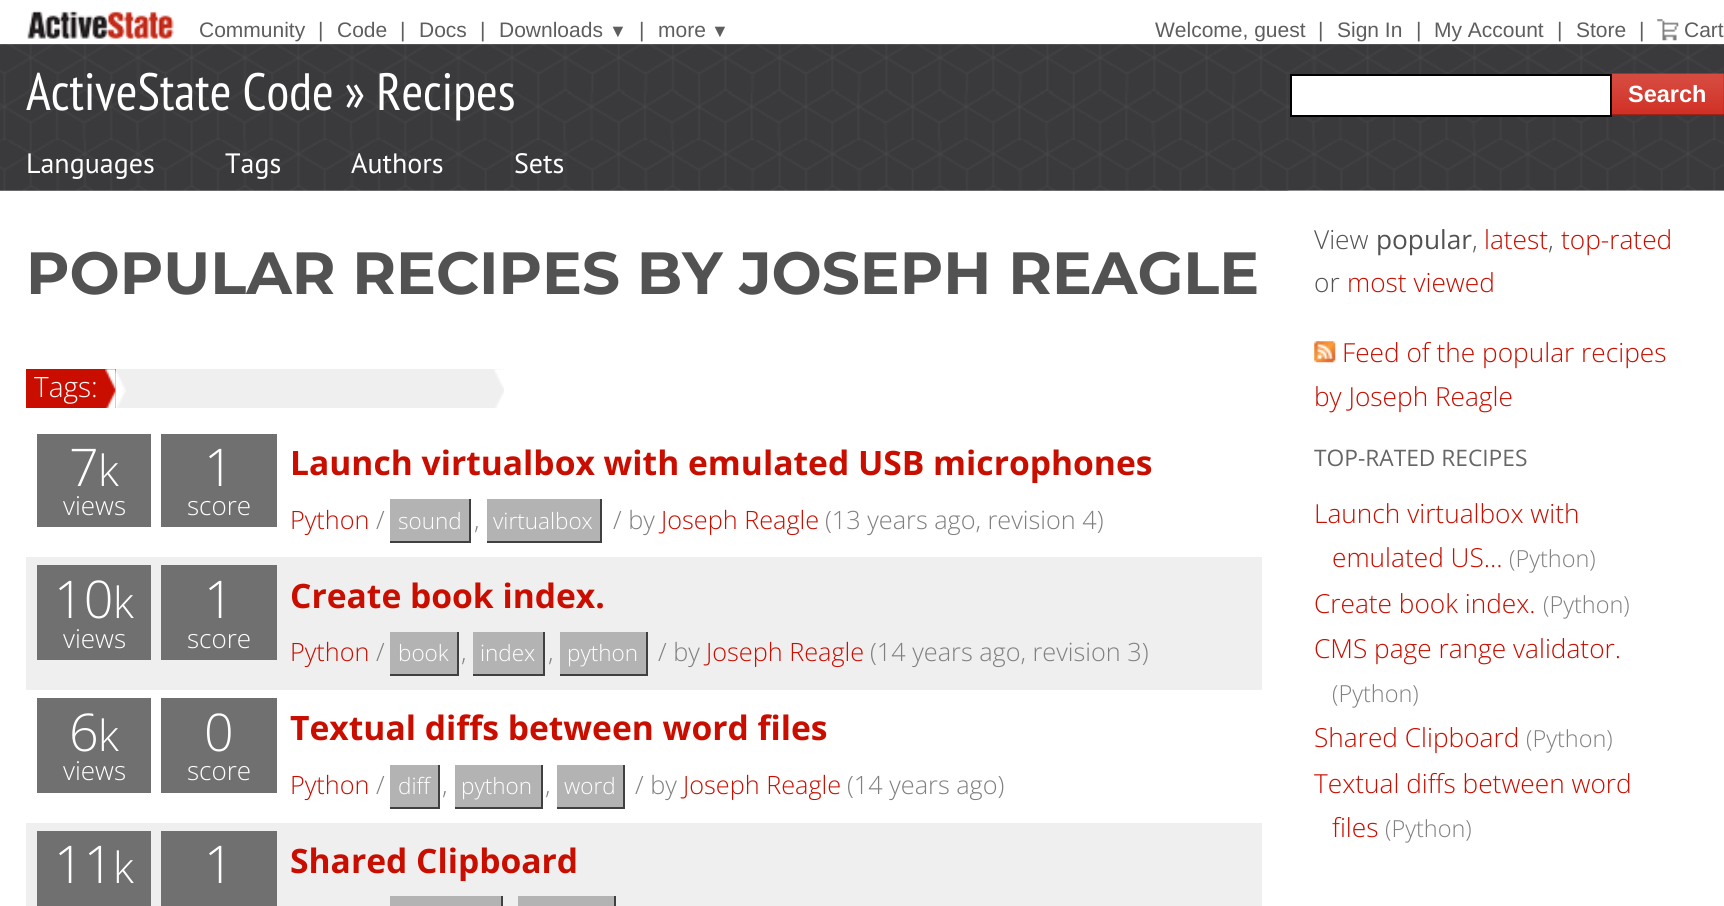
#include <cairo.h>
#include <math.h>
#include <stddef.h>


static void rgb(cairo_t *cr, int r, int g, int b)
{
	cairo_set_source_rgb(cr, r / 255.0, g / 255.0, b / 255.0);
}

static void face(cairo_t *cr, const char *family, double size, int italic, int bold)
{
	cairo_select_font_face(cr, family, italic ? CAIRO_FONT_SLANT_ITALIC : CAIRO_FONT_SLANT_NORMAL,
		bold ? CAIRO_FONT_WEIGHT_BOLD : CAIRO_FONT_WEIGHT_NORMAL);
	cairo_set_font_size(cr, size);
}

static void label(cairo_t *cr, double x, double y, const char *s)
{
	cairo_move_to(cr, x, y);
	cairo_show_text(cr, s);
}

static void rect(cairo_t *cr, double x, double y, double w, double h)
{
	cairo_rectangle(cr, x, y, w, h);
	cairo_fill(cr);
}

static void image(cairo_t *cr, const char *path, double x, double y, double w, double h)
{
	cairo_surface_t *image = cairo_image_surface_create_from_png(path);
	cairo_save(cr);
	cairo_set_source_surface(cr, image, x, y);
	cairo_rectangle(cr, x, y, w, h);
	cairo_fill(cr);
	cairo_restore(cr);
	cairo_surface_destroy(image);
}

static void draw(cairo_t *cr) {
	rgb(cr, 255, 255, 255);
	cairo_paint(cr);
	image(cr, "image0.png", 0, 44, 1724, 147);
	image(cr, "image1.png", 27, 10, 147, 29);
	face(cr, "Liberation Sans", 21, 0, 0);
	rgb(cr, 94, 94, 94);
	label(cr, 199, 37, "Community");
	label(cr, 318, 37, "|");
	label(cr, 337, 37, "Code");
	label(cr, 400, 37, "|");
	label(cr, 419, 37, "Docs");
	label(cr, 480, 37, "|");
	label(cr, 499, 37, "Downloads");
	face(cr, "Liberation Sans", 18, 0, 0);
	label(cr, 609, 37, "▼");
	face(cr, "Liberation Sans", 21, 0, 0);
	label(cr, 639, 37, "|");
	label(cr, 658, 37, "more");
	face(cr, "Liberation Sans", 18, 0, 0);
	label(cr, 711, 37, "▼");
	face(cr, "Liberation Sans", 21, 0, 0);
	label(cr, 1155, 37, "Welcome, guest");
	label(cr, 1318, 37, "|");
	label(cr, 1337, 37, "Sign In");
	label(cr, 1416, 37, "|");
	label(cr, 1434, 37, "My Account");
	label(cr, 1557, 37, "|");
	label(cr, 1576, 37, "Store");
	label(cr, 1639, 37, "|");
	image(cr, "image2.png", 1657, 19, 22, 22);
	label(cr, 1684, 37, "Cart");
	face(cr, "PT Sans Narrow", 52.5, 0, 0);
	rgb(cr, 255, 255, 255);
	label(cr, 26, 110, "ActiveState Code » Recipes");
	cairo_rectangle(cr, 1291, 75, 320, 41);
	cairo_fill_preserve(cr);
	rgb(cr, 0, 0, 0);
	cairo_stroke(cr);
	rgb(cr, 201, 14, 0);
	rect(cr, 1612, 74, 112, 42);
	image(cr, "image3.png", 1611, 73, 113, 43);
	cairo_set_source_rgba(cr, 0, 0, 0, 0.25);
	rect(cr, 1612, 114, 112, 2);
	face(cr, "Liberation Sans", 23.5, 0, 1);
	rgb(cr, 255, 255, 255);
	label(cr, 1628, 102, "Search");
	face(cr, "PT Sans", 28, 0, 0);
	label(cr, 26, 173, "Languages");
	label(cr, 225, 173, "Tags");
	label(cr, 351, 173, "Authors");
	label(cr, 514, 173, "Sets");
	image(cr, "image4.png", 1288, 190, 436, 1);
	face(cr, "Montserrat", 59.5, 0, 1);
	rgb(cr, 82, 82, 82);
	label(cr, 26, 294, "POPULAR RECIPES BY JOSEPH REAGLE");
	rgb(cr, 201, 14, 0);
	rect(cr, 26, 369, 90, 39);
	face(cr, "Open Sans Light", 28, 0, 0);
	rgb(cr, 255, 255, 255);
	label(cr, 34, 397, "Tags:");
	image(cr, "image5.png", 105, 369, 11, 39);
	rgb(cr, 239, 239, 239);
	rect(cr, 116, 369, 388, 39);
	image(cr, "image6.png", 115, 369, 11, 39);
	image(cr, "image7.png", 494, 369, 10, 39);
	rgb(cr, 112, 112, 112);
	rect(cr, 37, 434, 114, 93);
	face(cr, "Open Sans Light", 52, 0, 0);
	rgb(cr, 255, 255, 255);
	label(cr, 69, 486, "7");
	face(cr, "Open Sans Light", 43, 0, 0);
	label(cr, 98, 486, "k");
	face(cr, "Open Sans Light", 26, 0, 0);
	label(cr, 63, 515, "views");
	rgb(cr, 112, 112, 112);
	rect(cr, 161, 434, 116, 93);
	face(cr, "Open Sans Light", 52, 0, 0);
	rgb(cr, 255, 255, 255);
	label(cr, 204, 486, "1");
	face(cr, "Open Sans Light", 26, 0, 0);
	label(cr, 187, 515, "score");
	face(cr, "Open Sans", 33.6, 0, 1);
	rgb(cr, 201, 14, 0);
	label(cr, 290, 475, "Launch virtualbox with emulated USB microphones");
	face(cr, "Open Sans Light", 25.25, 0, 0);
	label(cr, 290, 529, "Python");
	rgb(cr, 128, 128, 128);
	label(cr, 376, 529, "/");
	rgb(cr, 179, 179, 179);
	rect(cr, 390, 499, 79, 42);
	face(cr, "Open Sans Light", 22.5, 0, 0);
	rgb(cr, 255, 255, 255);
	label(cr, 398, 529, "sound");
	rgb(cr, 64, 64, 65);
	rect(cr, 469, 499, 2, 44);
	rect(cr, 390, 541, 81, 2);
	face(cr, "Open Sans Light", 25.25, 0, 0);
	rgb(cr, 128, 128, 128);
	label(cr, 474, 529, ",");
	rgb(cr, 179, 179, 179);
	rect(cr, 487, 499, 113, 42);
	face(cr, "Open Sans Light", 22.5, 0, 0);
	rgb(cr, 255, 255, 255);
	label(cr, 493, 529, "virtualbox");
	rgb(cr, 64, 64, 65);
	rect(cr, 600, 499, 2, 44);
	rect(cr, 487, 541, 115, 2);
	face(cr, "Open Sans Light", 25.25, 0, 0);
	rgb(cr, 128, 128, 128);
	label(cr, 613, 529, "/ by");
	rgb(cr, 201, 14, 0);
	label(cr, 661, 529, "Joseph Reagle");
	rgb(cr, 128, 128, 128);
	label(cr, 825, 529, "(13 years ago, revision 4)");
	rgb(cr, 239, 239, 239);
	rect(cr, 26, 557, 1236, 133);
	rgb(cr, 112, 112, 112);
	rect(cr, 37, 565, 114, 95);
	face(cr, "Open Sans Light", 52, 0, 0);
	rgb(cr, 255, 255, 255);
	label(cr, 54, 618, "10");
	face(cr, "Open Sans Light", 43, 0, 0);
	label(cr, 113, 618, "k");
	face(cr, "Open Sans Light", 26, 0, 0);
	label(cr, 63, 648, "views");
	rgb(cr, 112, 112, 112);
	rect(cr, 161, 565, 116, 95);
	face(cr, "Open Sans Light", 52, 0, 0);
	rgb(cr, 255, 255, 255);
	label(cr, 204, 618, "1");
	face(cr, "Open Sans Light", 26, 0, 0);
	label(cr, 187, 648, "score");
	face(cr, "Open Sans", 33.6, 0, 1);
	rgb(cr, 201, 14, 0);
	label(cr, 290, 608, "Create book index.");
	face(cr, "Open Sans Light", 25.25, 0, 0);
	label(cr, 290, 661, "Python");
	rgb(cr, 128, 128, 128);
	label(cr, 376, 661, "/");
	rgb(cr, 179, 179, 179);
	rect(cr, 390, 632, 67, 42);
	face(cr, "Open Sans Light", 22.5, 0, 0);
	rgb(cr, 255, 255, 255);
	label(cr, 398, 661, "book");
	rgb(cr, 64, 64, 65);
	rect(cr, 457, 632, 2, 44);
	rect(cr, 390, 674, 69, 2);
	face(cr, "Open Sans Light", 25.25, 0, 0);
	rgb(cr, 128, 128, 128);
	label(cr, 461, 661, ",");
	rgb(cr, 179, 179, 179);
	rect(cr, 473, 632, 70, 42);
	face(cr, "Open Sans Light", 22.5, 0, 0);
	rgb(cr, 255, 255, 255);
	label(cr, 480, 661, "index");
	rgb(cr, 64, 64, 65);
	rect(cr, 543, 632, 2, 44);
	rect(cr, 473, 674, 71, 2);
	face(cr, "Open Sans Light", 25.25, 0, 0);
	rgb(cr, 128, 128, 128);
	label(cr, 548, 661, ",");
	rgb(cr, 179, 179, 179);
	rect(cr, 560, 632, 86, 42);
	face(cr, "Open Sans Light", 22.5, 0, 0);
	rgb(cr, 255, 255, 255);
	label(cr, 567, 661, "python");
	rgb(cr, 64, 64, 65);
	rect(cr, 646, 632, 2, 44);
	rect(cr, 560, 674, 88, 2);
	face(cr, "Open Sans Light", 25.25, 0, 0);
	rgb(cr, 128, 128, 128);
	label(cr, 658, 661, "/ by");
	rgb(cr, 201, 14, 0);
	label(cr, 706, 661, "Joseph Reagle");
	rgb(cr, 128, 128, 128);
	label(cr, 870, 661, "(14 years ago, revision 3)");
	rgb(cr, 112, 112, 112);
	rect(cr, 37, 698, 114, 95);
	face(cr, "Open Sans Light", 52, 0, 0);
	rgb(cr, 255, 255, 255);
	label(cr, 69, 751, "6");
	face(cr, "Open Sans Light", 43, 0, 0);
	label(cr, 98, 751, "k");
	face(cr, "Open Sans Light", 26, 0, 0);
	label(cr, 63, 780, "views");
	rgb(cr, 112, 112, 112);
	rect(cr, 161, 698, 116, 95);
	face(cr, "Open Sans Light", 52, 0, 0);
	rgb(cr, 255, 255, 255);
	label(cr, 204, 751, "0");
	face(cr, "Open Sans Light", 26, 0, 0);
	label(cr, 187, 780, "score");
	face(cr, "Open Sans", 33.6, 0, 1);
	rgb(cr, 201, 14, 0);
	label(cr, 290, 740, "Textual diffs between word files");
	face(cr, "Open Sans Light", 25.25, 0, 0);
	label(cr, 290, 794, "Python");
	rgb(cr, 128, 128, 128);
	label(cr, 376, 794, "/");
	rgb(cr, 179, 179, 179);
	rect(cr, 390, 765, 48, 42);
	face(cr, "Open Sans Light", 22.5, 0, 0);
	rgb(cr, 255, 255, 255);
	label(cr, 398, 794, "diff");
	rgb(cr, 64, 64, 65);
	rect(cr, 438, 765, 2, 44);
	rect(cr, 390, 807, 49, 2);
	face(cr, "Open Sans Light", 25.25, 0, 0);
	rgb(cr, 128, 128, 128);
	label(cr, 442, 794, ",");
	rgb(cr, 179, 179, 179);
	rect(cr, 455, 765, 86, 42);
	face(cr, "Open Sans Light", 22.5, 0, 0);
	rgb(cr, 255, 255, 255);
	label(cr, 461, 794, "python");
	rgb(cr, 64, 64, 65);
	rect(cr, 541, 765, 2, 44);
	rect(cr, 455, 807, 88, 2);
	face(cr, "Open Sans Light", 25.25, 0, 0);
	rgb(cr, 128, 128, 128);
	label(cr, 545, 794, ",");
	rgb(cr, 179, 179, 179);
	rect(cr, 557, 765, 66, 42);
	face(cr, "Open Sans Light", 22.5, 0, 0);
	rgb(cr, 255, 255, 255);
	label(cr, 564, 794, "word");
	rgb(cr, 64, 64, 65);
	rect(cr, 623, 765, 2, 44);
	rect(cr, 557, 807, 68, 2);
	face(cr, "Open Sans Light", 25.25, 0, 0);
	rgb(cr, 128, 128, 128);
	label(cr, 635, 794, "/ by");
	rgb(cr, 201, 14, 0);
	label(cr, 683, 794, "Joseph Reagle");
	rgb(cr, 128, 128, 128);
	label(cr, 847, 794, "(14 years ago)");
	rgb(cr, 239, 239, 239);
	rect(cr, 26, 823, 1236, 83);
	rgb(cr, 112, 112, 112);
	rect(cr, 37, 831, 114, 75);
	face(cr, "Open Sans Light", 52, 0, 0);
	rgb(cr, 255, 255, 255);
	label(cr, 54, 883, "11");
	face(cr, "Open Sans Light", 43, 0, 0);
	label(cr, 113, 883, "k");
	rgb(cr, 112, 112, 112);
	rect(cr, 161, 831, 116, 75);
	face(cr, "Open Sans Light", 52, 0, 0);
	rgb(cr, 255, 255, 255);
	label(cr, 204, 883, "1");
	face(cr, "Open Sans", 33.6, 0, 1);
	rgb(cr, 201, 14, 0);
	label(cr, 290, 873, "Shared Clipboard");
	rgb(cr, 179, 179, 179);
	rect(cr, 390, 896, 111, 10);
	rgb(cr, 64, 64, 65);
	rect(cr, 501, 896, 2, 10);
	rgb(cr, 179, 179, 179);
	rect(cr, 518, 896, 96, 10);
	rgb(cr, 64, 64, 65);
	rect(cr, 614, 896, 2, 10);
	face(cr, "Open Sans Light", 26.25, 0, 0);
	rgb(cr, 82, 82, 82);
	label(cr, 1314, 249, "View");
	face(cr, "Open Sans", 26.25, 0, 0);
	label(cr, 1376, 249, "popular");
	face(cr, "Open Sans Light", 26.25, 0, 0);
	label(cr, 1472, 249, ",");
	rgb(cr, 201, 14, 0);
	label(cr, 1484, 249, "latest");
	rgb(cr, 82, 82, 82);
	label(cr, 1548, 249, ",");
	rgb(cr, 201, 14, 0);
	label(cr, 1561, 249, "top-rated");
	rgb(cr, 82, 82, 82);
	label(cr, 1314, 292, "or");
	rgb(cr, 201, 14, 0);
	label(cr, 1347, 292, "most viewed");
	image(cr, "image8.png", 1314, 341, 22, 22);
	label(cr, 1342, 362, "Feed of the popular recipes");
	label(cr, 1314, 406, "by Joseph Reagle");
	face(cr, "Open Sans", 22.75, 0, 0);
	rgb(cr, 102, 102, 102);
	label(cr, 1314, 466, "TOP-RATED RECIPES");
	face(cr, "Open Sans Light", 26.25, 0, 0);
	rgb(cr, 201, 14, 0);
	label(cr, 1314, 523, "Launch virtualbox with");
	label(cr, 1332, 567, "emulated US…");
	face(cr, "Open Sans Light", 23.5, 0, 0);
	rgb(cr, 128, 128, 128);
	label(cr, 1509, 567, "(Python)");
	face(cr, "Open Sans Light", 26.25, 0, 0);
	rgb(cr, 201, 14, 0);
	label(cr, 1314, 613, "Create book index.");
	face(cr, "Open Sans Light", 23.5, 0, 0);
	rgb(cr, 128, 128, 128);
	label(cr, 1543, 613, "(Python)");
	face(cr, "Open Sans Light", 26.25, 0, 0);
	rgb(cr, 201, 14, 0);
	label(cr, 1314, 658, "CMS page range validator.");
	face(cr, "Open Sans Light", 23.5, 0, 0);
	rgb(cr, 128, 128, 128);
	label(cr, 1332, 702, "(Python)");
	face(cr, "Open Sans Light", 26.25, 0, 0);
	rgb(cr, 201, 14, 0);
	label(cr, 1314, 747, "Shared Clipboard");
	face(cr, "Open Sans Light", 23.5, 0, 0);
	rgb(cr, 128, 128, 128);
	label(cr, 1526, 747, "(Python)");
	face(cr, "Open Sans Light", 26.25, 0, 0);
	rgb(cr, 201, 14, 0);
	label(cr, 1314, 793, "Textual diffs between word");
	label(cr, 1332, 837, "files");
	face(cr, "Open Sans Light", 23.5, 0, 0);
	rgb(cr, 128, 128, 128);
	label(cr, 1385, 837, "(Python)");
}

int main(void) {
	cairo_surface_t *surface = cairo_image_surface_create(CAIRO_FORMAT_RGB24, 1724, 906);
	cairo_t *cr = cairo_create(surface);
	cairo_font_options_t *options = cairo_font_options_create();
	cairo_font_options_set_hint_metrics(options, CAIRO_HINT_METRICS_OFF);
	cairo_font_options_set_hint_style(options, CAIRO_HINT_STYLE_NONE);
	cairo_set_font_options(cr, options);
	cairo_set_miter_limit(cr, 4);
	draw(cr);
	cairo_surface_write_to_png(surface, "render.png");
	cairo_font_options_destroy(options);
	cairo_destroy(cr);
	cairo_surface_destroy(surface);
	return 0;
}
